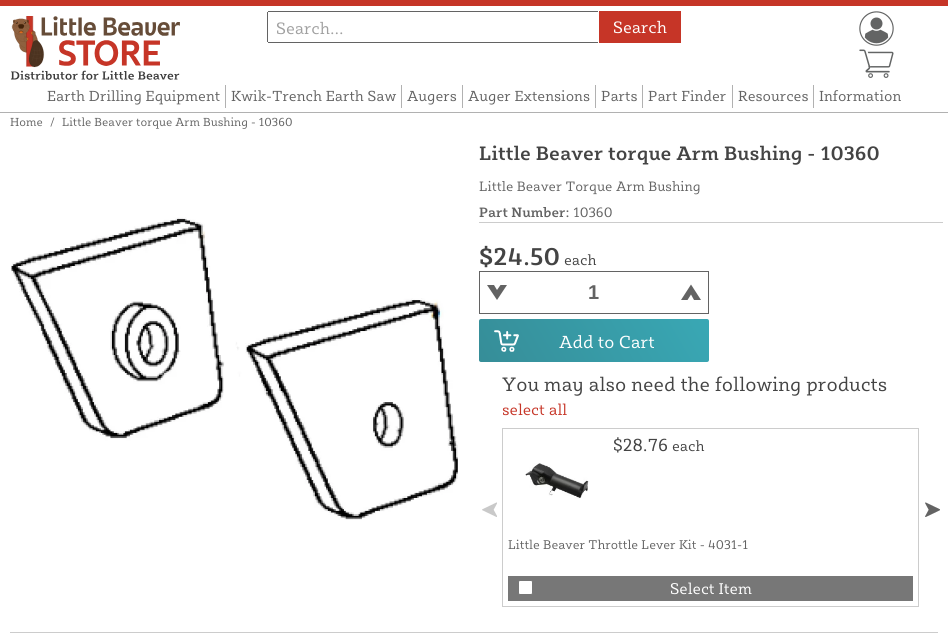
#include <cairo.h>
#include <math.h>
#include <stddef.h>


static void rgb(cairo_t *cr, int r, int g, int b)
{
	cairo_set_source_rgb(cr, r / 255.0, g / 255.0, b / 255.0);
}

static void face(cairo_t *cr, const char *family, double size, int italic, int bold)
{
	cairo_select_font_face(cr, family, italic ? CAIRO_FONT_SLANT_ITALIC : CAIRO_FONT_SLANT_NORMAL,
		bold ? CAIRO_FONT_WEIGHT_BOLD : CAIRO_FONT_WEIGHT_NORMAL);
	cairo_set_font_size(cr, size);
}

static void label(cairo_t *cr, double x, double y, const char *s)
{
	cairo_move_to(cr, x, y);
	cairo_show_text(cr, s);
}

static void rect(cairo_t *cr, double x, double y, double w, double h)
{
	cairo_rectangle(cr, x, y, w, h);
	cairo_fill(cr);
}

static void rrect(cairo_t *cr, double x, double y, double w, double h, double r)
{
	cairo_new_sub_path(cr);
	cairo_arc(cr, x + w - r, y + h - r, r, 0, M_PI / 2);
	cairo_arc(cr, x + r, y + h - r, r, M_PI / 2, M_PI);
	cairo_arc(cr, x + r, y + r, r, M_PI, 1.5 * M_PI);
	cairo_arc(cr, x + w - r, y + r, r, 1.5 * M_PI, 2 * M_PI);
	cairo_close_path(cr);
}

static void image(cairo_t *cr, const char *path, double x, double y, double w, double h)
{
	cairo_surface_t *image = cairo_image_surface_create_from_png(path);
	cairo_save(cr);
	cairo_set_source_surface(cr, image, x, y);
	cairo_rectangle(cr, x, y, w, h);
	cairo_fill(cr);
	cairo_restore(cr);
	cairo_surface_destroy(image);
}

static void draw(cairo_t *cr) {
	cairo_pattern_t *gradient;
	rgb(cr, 255, 255, 255);
	cairo_paint(cr);
	rgb(cr, 198, 53, 39);
	rect(cr, 0, 0, 948, 6);
	rgb(cr, 177, 177, 177);
	rect(cr, 0, 112, 948, 1);
	image(cr, "image0.png", 11, 16, 169, 64);
	rgb(cr, 99, 99, 99);
	rect(cr, 268, 11, 330, 1);
	rect(cr, 268, 42, 330, 1);
	rect(cr, 267, 12, 1, 30);
	face(cr, "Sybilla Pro", 17, 0, 0);
	rgb(cr, 160, 160, 160);
	label(cr, 276, 34, "Search...");
	gradient = cairo_pattern_create_linear(452, 88, 664, -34);
	cairo_pattern_add_color_stop_rgba(gradient, 0, 0.776, 0.208, 0.153, 1);
	cairo_pattern_add_color_stop_rgba(gradient, 0.13, 0.776, 0.208, 0.153, 1);
	cairo_pattern_add_color_stop_rgba(gradient, 0.2, 0.945, 0.275, 0.212, 1);
	cairo_pattern_add_color_stop_rgba(gradient, 0.27, 0.776, 0.208, 0.153, 1);
	cairo_pattern_add_color_stop_rgba(gradient, 1, 0.776, 0.208, 0.153, 1);
	cairo_set_source(cr, gradient);
	cairo_pattern_destroy(gradient);
	rect(cr, 599, 11, 82, 32);
	rgb(cr, 255, 255, 255);
	label(cr, 613, 33, "Search");
	image(cr, "image1.png", 859, 11, 35, 35);
	image(cr, "image2.png", 859, 49, 35, 29);
	rgb(cr, 177, 177, 177);
	rect(cr, 225, 85, 1, 23);
	face(cr, "Sybilla Pro", 15, 0, 0);
	rgb(cr, 99, 99, 99);
	label(cr, 47, 101, "Earth Drilling Equipment");
	rgb(cr, 177, 177, 177);
	rect(cr, 401, 85, 1, 23);
	rgb(cr, 99, 99, 99);
	label(cr, 231, 101, "Kwik-Trench Earth Saw");
	rgb(cr, 177, 177, 177);
	rect(cr, 462, 85, 1, 23);
	rgb(cr, 99, 99, 99);
	label(cr, 407, 101, "Augers");
	rgb(cr, 177, 177, 177);
	rect(cr, 595, 85, 1, 23);
	rgb(cr, 99, 99, 99);
	label(cr, 468, 101, "Auger Extensions");
	rgb(cr, 177, 177, 177);
	rect(cr, 642, 85, 1, 23);
	rgb(cr, 99, 99, 99);
	label(cr, 601, 101, "Parts");
	rgb(cr, 177, 177, 177);
	rect(cr, 732, 85, 1, 23);
	rgb(cr, 99, 99, 99);
	label(cr, 648, 101, "Part Finder");
	rgb(cr, 177, 177, 177);
	rect(cr, 813, 85, 1, 23);
	rgb(cr, 99, 99, 99);
	label(cr, 738, 101, "Resources");
	label(cr, 819, 101, "Information");
	face(cr, "Sybilla Pro", 12, 0, 0);
	label(cr, 10, 126, "Home");
	label(cr, 50, 126, "/");
	label(cr, 62, 126, "Little Beaver torque Arm Bushing - 10360");
	rgb(cr, 204, 204, 204);
	rect(cr, 10, 632, 928, 1);
	image(cr, "image3.png", 11, 217, 447, 303);
	face(cr, "Sybilla Pro Medium", 20, 0, 0);
	rgb(cr, 68, 68, 68);
	label(cr, 479, 160, "Little Beaver torque Arm Bushing - 10360");
	rgb(cr, 204, 204, 204);
	rect(cr, 479, 222, 464, 1);
	face(cr, "Sybilla Pro", 14, 0, 0);
	rgb(cr, 99, 99, 99);
	label(cr, 479, 191, "Little Beaver Torque Arm Bushing");
	face(cr, "Sybilla Pro Medium", 14, 0, 0);
	label(cr, 479, 217, "Part Number:");
	face(cr, "Sybilla Pro", 14, 0, 0);
	label(cr, 573, 217, "10360");
	face(cr, "Sybilla Pro Medium", 25, 0, 0);
	rgb(cr, 68, 68, 68);
	label(cr, 479, 265, "$24.50");
	face(cr, "Sybilla Pro", 15, 0, 0);
	label(cr, 564, 265, "each");
	cairo_rectangle(cr, 479.5, 271.5, 229, 42);
	rgb(cr, 99, 99, 99);
	cairo_set_line_width(cr, 1);
	cairo_stroke(cr);
	cairo_new_path(cr);
	cairo_move_to(cr, 497, 300);
	cairo_line_to(cr, 487, 285);
	cairo_line_to(cr, 494, 285);
	cairo_line_to(cr, 497, 290);
	cairo_line_to(cr, 500.5, 285);
	cairo_line_to(cr, 507, 285);
	cairo_close_path(cr);
	cairo_fill(cr);
	face(cr, "Liberation Sans", 20, 0, 1);
	label(cr, 588, 299, "1");
	cairo_new_path(cr);
	cairo_move_to(cr, 691, 284.5);
	cairo_line_to(cr, 701, 300);
	cairo_line_to(cr, 694, 300);
	cairo_line_to(cr, 691, 294.5);
	cairo_line_to(cr, 687.5, 300);
	cairo_line_to(cr, 681, 300);
	cairo_close_path(cr);
	cairo_fill(cr);
	gradient = cairo_pattern_create_linear(87, 501, 641, 180);
	cairo_pattern_add_color_stop_rgba(gradient, 0, 0.2, 0.443, 0.475, 1);
	cairo_pattern_add_color_stop_rgba(gradient, 0.13, 0.2, 0.443, 0.475, 1);
	cairo_pattern_add_color_stop_rgba(gradient, 0.2, 0.224, 0.663, 0.714, 1);
	cairo_pattern_add_color_stop_rgba(gradient, 0.27, 0.2, 0.443, 0.475, 1);
	cairo_pattern_add_color_stop_rgba(gradient, 1, 0.224, 0.663, 0.714, 1);
	cairo_set_source(cr, gradient);
	cairo_pattern_destroy(gradient);
	rrect(cr, 479, 319, 230, 43, 2);
	cairo_fill(cr);
	image(cr, "image4.png", 494, 330, 25, 22);
	face(cr, "Sybilla Pro", 18, 0, 0);
	rgb(cr, 255, 255, 255);
	label(cr, 559, 348, "Add to Cart");
	face(cr, "Sybilla Pro", 20, 0, 0);
	rgb(cr, 68, 68, 68);
	label(cr, 502, 391, "You may also need the following products");
	face(cr, "Sybilla Pro", 16, 0, 0);
	rgb(cr, 198, 53, 39);
	label(cr, 502, 415, "select all");
	image(cr, "image5.png", 482, 502, 15, 15);
	cairo_rectangle(cr, 502.5, 428.5, 416, 178);
	rgb(cr, 204, 204, 204);
	cairo_stroke(cr);
	face(cr, "Sybilla Pro", 18, 0, 0);
	rgb(cr, 68, 68, 68);
	label(cr, 613, 451, "$28.76");
	face(cr, "Sybilla Pro", 15, 0, 0);
	label(cr, 672, 451, "each");
	image(cr, "image6.png", 525, 463, 64, 36);
	face(cr, "Sybilla Pro", 13, 0, 0);
	rgb(cr, 99, 99, 99);
	label(cr, 508, 549, "Little Beaver Throttle Lever Kit - 4031-1");
	gradient = cairo_pattern_create_linear(-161, 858, 772, 319);
	cairo_pattern_add_color_stop_rgba(gradient, 0, 0.467, 0.467, 0.467, 1);
	cairo_pattern_add_color_stop_rgba(gradient, 0.13, 0.467, 0.467, 0.467, 1);
	cairo_pattern_add_color_stop_rgba(gradient, 0.2, 0.267, 0.267, 0.267, 1);
	cairo_pattern_add_color_stop_rgba(gradient, 0.27, 0.467, 0.467, 0.467, 1);
	cairo_pattern_add_color_stop_rgba(gradient, 1, 0.467, 0.467, 0.467, 1);
	cairo_set_source(cr, gradient);
	cairo_pattern_destroy(gradient);
	rect(cr, 508, 576, 405, 25);
	rgb(cr, 255, 255, 255);
	rrect(cr, 518.5, 580.5, 14, 14, 1.5);
	cairo_fill_preserve(cr);
	rgb(cr, 118, 118, 118);
	cairo_stroke(cr);
	face(cr, "Sybilla Pro", 16, 0, 0);
	rgb(cr, 255, 255, 255);
	label(cr, 670, 594, "Select Item");
	image(cr, "image7.png", 925, 502, 15, 15);
}

int main(void) {
	cairo_surface_t *surface = cairo_image_surface_create(CAIRO_FORMAT_RGB24, 948, 644);
	cairo_t *cr = cairo_create(surface);
	cairo_font_options_t *options = cairo_font_options_create();
	cairo_font_options_set_hint_metrics(options, CAIRO_HINT_METRICS_OFF);
	cairo_font_options_set_hint_style(options, CAIRO_HINT_STYLE_NONE);
	cairo_set_font_options(cr, options);
	cairo_set_miter_limit(cr, 4);
	draw(cr);
	cairo_surface_write_to_png(surface, "render.png");
	cairo_font_options_destroy(options);
	cairo_destroy(cr);
	cairo_surface_destroy(surface);
	return 0;
}
